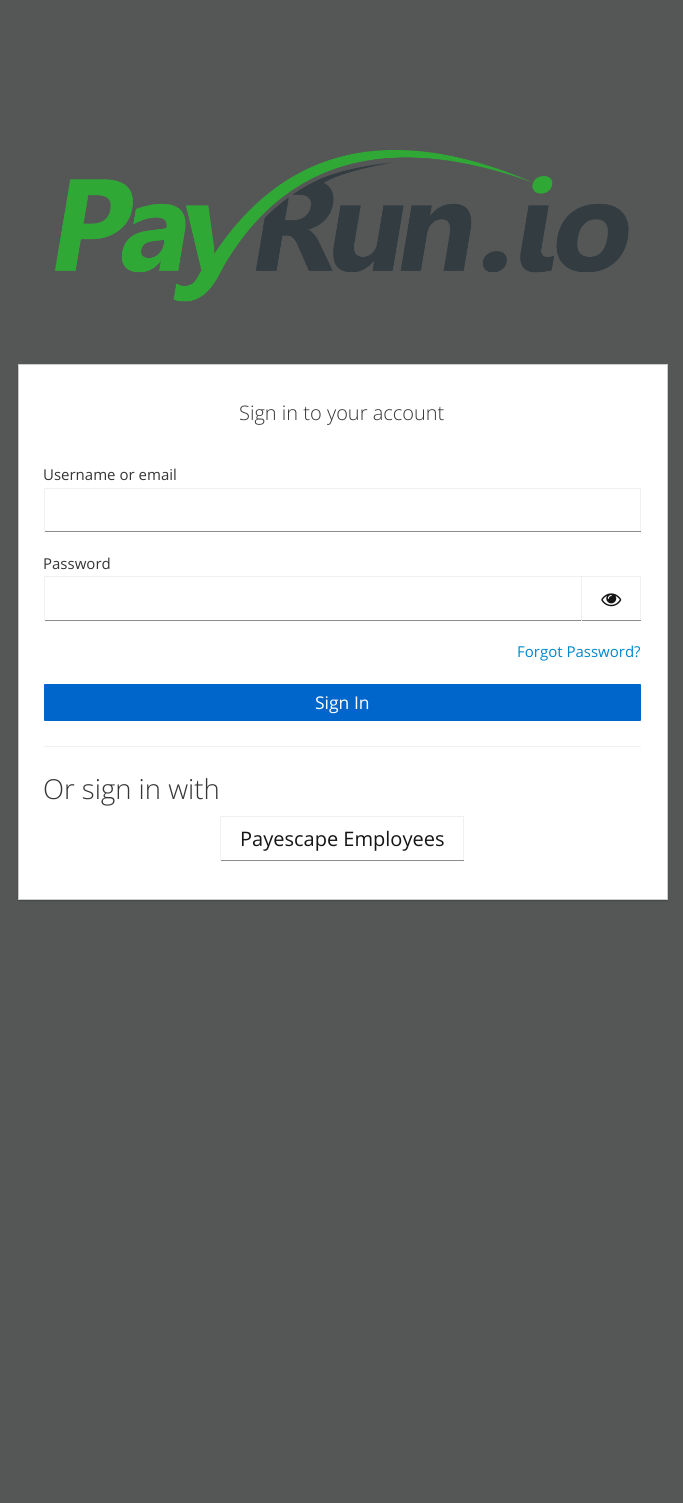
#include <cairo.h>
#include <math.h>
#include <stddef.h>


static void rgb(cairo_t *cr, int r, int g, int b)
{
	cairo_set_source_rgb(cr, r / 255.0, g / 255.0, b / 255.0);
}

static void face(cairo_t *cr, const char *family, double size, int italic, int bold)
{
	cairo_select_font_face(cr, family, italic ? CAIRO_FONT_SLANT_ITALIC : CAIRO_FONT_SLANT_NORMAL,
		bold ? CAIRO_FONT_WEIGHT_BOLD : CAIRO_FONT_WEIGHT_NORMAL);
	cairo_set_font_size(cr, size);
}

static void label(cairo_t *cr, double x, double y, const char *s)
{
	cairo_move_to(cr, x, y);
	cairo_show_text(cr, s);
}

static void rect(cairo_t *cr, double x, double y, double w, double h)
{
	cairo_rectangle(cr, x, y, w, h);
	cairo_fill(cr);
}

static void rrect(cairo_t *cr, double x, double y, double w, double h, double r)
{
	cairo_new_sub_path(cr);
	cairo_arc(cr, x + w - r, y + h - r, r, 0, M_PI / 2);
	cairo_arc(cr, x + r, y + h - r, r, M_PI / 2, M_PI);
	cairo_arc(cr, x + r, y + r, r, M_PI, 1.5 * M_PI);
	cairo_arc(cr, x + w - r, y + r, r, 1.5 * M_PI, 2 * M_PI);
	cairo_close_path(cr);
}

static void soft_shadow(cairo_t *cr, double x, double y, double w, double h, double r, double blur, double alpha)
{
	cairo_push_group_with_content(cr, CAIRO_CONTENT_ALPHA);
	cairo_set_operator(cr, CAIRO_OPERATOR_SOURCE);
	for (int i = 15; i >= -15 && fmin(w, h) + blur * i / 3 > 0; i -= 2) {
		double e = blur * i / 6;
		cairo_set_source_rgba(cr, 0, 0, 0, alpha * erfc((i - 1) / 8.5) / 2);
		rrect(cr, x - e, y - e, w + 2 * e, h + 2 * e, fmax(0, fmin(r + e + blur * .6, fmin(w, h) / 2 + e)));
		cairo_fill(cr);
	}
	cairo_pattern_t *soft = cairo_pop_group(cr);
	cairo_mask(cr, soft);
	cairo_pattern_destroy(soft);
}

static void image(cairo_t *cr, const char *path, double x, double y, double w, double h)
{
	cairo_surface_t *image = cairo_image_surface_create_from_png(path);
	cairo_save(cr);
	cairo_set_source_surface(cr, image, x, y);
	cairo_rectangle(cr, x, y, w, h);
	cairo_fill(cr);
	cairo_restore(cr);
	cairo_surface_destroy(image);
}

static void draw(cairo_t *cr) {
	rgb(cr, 85, 87, 87);
	cairo_paint(cr);
	image(cr, "image0.png", 55, 150, 574, 152);
	rgb(cr, 3, 3, 3);
	soft_shadow(cr, 18, 365, 650, 536, 0, 0.5, 0.18);
	rgb(cr, 255, 255, 255);
	cairo_rectangle(cr, 18.5, 364.5, 649, 535);
	cairo_fill_preserve(cr);
	rgb(cr, 204, 204, 204);
	cairo_set_line_width(cr, 1);
	cairo_stroke(cr);
	face(cr, "Open Sans Light", 20, 0, 0);
	rgb(cr, 54, 54, 54);
	label(cr, 239, 420, "Sign in to your account");
	face(cr, "Open Sans", 15, 0, 0);
	label(cr, 43, 480, "Username or email");
	rgb(cr, 240, 240, 240);
	rect(cr, 44, 488, 597, 1);
	rect(cr, 640, 488, 1, 45);
	rgb(cr, 138, 141, 144);
	rect(cr, 44, 531, 597, 1);
	rgb(cr, 240, 240, 240);
	rect(cr, 44, 488, 1, 45);
	rgb(cr, 54, 54, 54);
	label(cr, 43, 569, "Password");
	rgb(cr, 240, 240, 240);
	rect(cr, 44, 576, 597, 1);
	rgb(cr, 138, 141, 144);
	rect(cr, 44, 620, 539, 1);
	rgb(cr, 240, 240, 240);
	rect(cr, 44, 576, 1, 45);
	rect(cr, 640, 576, 1, 45);
	rgb(cr, 138, 141, 144);
	rect(cr, 581, 620, 60, 1);
	rgb(cr, 240, 240, 240);
	rect(cr, 581, 576, 1, 45);
	image(cr, "image1.png", 601, 593, 21, 14);
	rgb(cr, 0, 136, 206);
	label(cr, 517, 657, "Forgot Password?");
	rgb(cr, 0, 102, 204);
	rrect(cr, 44, 684, 597, 37, 1);
	cairo_fill(cr);
	face(cr, "Open Sans", 17.5, 0, 0);
	rgb(cr, 255, 255, 255);
	label(cr, 315, 709, "Sign In");
	rgb(cr, 241, 241, 241);
	rect(cr, 44, 746, 597, 1);
	face(cr, "Open Sans Light", 27.5, 0, 0);
	rgb(cr, 54, 54, 54);
	label(cr, 43, 799, "Or sign in with");
	rgb(cr, 240, 240, 240);
	rect(cr, 220, 816, 244, 1);
	rect(cr, 463, 816, 1, 45);
	rgb(cr, 138, 141, 144);
	rect(cr, 220, 860, 244, 1);
	rgb(cr, 240, 240, 240);
	rect(cr, 220, 816, 1, 45);
	face(cr, "Open Sans", 20, 0, 0);
	rgb(cr, 21, 21, 21);
	label(cr, 240, 846, "Payescape Employees");
}

int main(void) {
	cairo_surface_t *surface = cairo_image_surface_create(CAIRO_FORMAT_RGB24, 683, 1503);
	cairo_t *cr = cairo_create(surface);
	cairo_font_options_t *options = cairo_font_options_create();
	cairo_font_options_set_hint_metrics(options, CAIRO_HINT_METRICS_OFF);
	cairo_font_options_set_hint_style(options, CAIRO_HINT_STYLE_NONE);
	cairo_set_font_options(cr, options);
	cairo_set_miter_limit(cr, 4);
	draw(cr);
	cairo_surface_write_to_png(surface, "render.png");
	cairo_font_options_destroy(options);
	cairo_destroy(cr);
	cairo_surface_destroy(surface);
	return 0;
}
